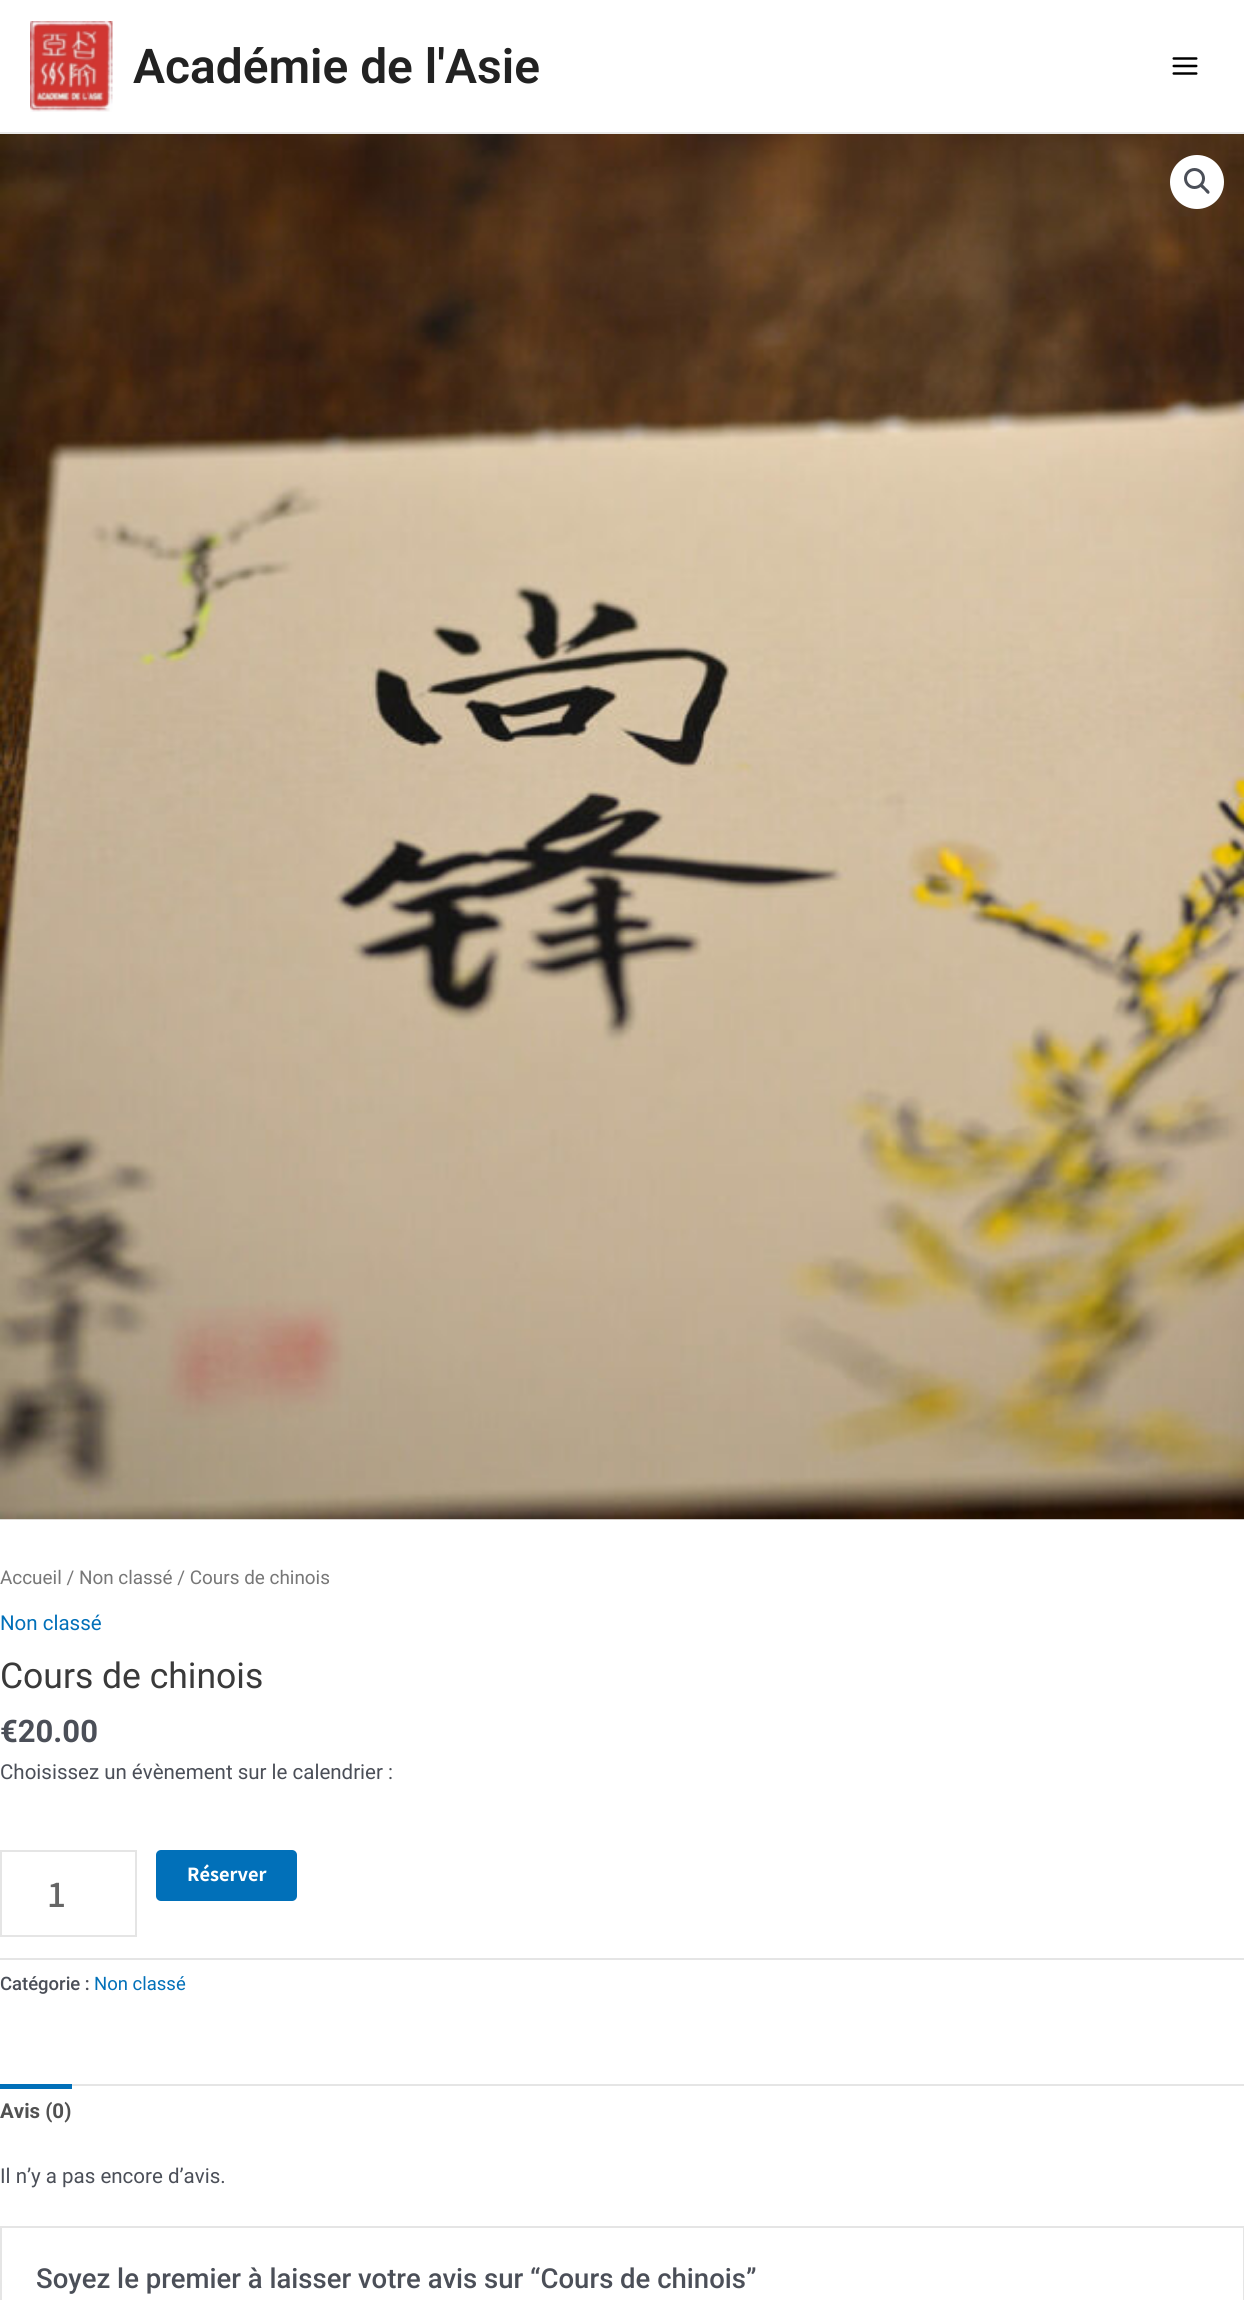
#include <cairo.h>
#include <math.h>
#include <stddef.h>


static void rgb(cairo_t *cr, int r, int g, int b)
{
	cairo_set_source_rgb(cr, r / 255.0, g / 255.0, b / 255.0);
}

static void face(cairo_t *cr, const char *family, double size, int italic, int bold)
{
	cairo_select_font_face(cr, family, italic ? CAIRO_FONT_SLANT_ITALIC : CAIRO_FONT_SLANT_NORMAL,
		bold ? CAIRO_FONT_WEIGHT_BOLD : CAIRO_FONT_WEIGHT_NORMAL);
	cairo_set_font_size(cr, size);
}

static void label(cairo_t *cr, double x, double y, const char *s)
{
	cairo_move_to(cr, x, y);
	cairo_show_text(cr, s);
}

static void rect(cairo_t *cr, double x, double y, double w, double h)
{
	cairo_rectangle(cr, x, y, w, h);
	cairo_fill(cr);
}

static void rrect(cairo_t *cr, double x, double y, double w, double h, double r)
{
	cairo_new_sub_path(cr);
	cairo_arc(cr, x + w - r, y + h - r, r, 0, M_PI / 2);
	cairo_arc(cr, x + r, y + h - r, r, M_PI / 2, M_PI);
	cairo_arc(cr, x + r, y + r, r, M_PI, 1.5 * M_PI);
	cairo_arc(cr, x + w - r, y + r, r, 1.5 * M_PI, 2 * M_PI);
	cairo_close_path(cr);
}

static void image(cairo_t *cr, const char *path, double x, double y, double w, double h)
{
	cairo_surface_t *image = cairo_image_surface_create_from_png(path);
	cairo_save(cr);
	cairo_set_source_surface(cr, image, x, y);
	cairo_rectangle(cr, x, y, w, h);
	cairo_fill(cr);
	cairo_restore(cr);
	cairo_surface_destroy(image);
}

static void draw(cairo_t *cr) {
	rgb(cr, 255, 255, 255);
	cairo_paint(cr);
	rgb(cr, 234, 234, 234);
	rect(cr, 0, 132, 1244, 2);
	image(cr, "image0.png", 30, 21, 83, 91);
	face(cr, "Roboto SemiBold", 47.9, 0, 0);
	rgb(cr, 34, 34, 34);
	label(cr, 133, 83, "Académie de l'Asie");
	image(cr, "image1.png", 1172, 57, 26, 18);
	image(cr, "image2.png", 0, 134, 1244, 1386);
	rgb(cr, 255, 255, 255);
	cairo_arc(cr, 1197, 182, 27, 0, 2 * M_PI);
	cairo_fill(cr);
	cairo_arc(cr, 1194.5, 178.5, 9, 0, 2 * M_PI);
	rgb(cr, 75, 79, 88);
	cairo_set_line_width(cr, 3);
	cairo_stroke(cr);
	cairo_new_path(cr);
	cairo_move_to(cr, 1200.5, 185);
	cairo_curve_to(cr, 1202.5, 183, 1205, 187, 1206, 188);
	cairo_curve_to(cr, 1207, 189, 1211, 191.5, 1209, 193.5);
	cairo_curve_to(cr, 1207.5, 195, 1205, 191, 1204, 190);
	cairo_curve_to(cr, 1203, 189, 1199, 186.5, 1200.5, 185);
	cairo_close_path(cr);
	cairo_fill(cr);
	face(cr, "Roboto", 18.9, 0, 0);
	rgb(cr, 119, 119, 119);
	label(cr, 0, 1584, "Accueil / Non classé / Cours de chinois");
	face(cr, "Roboto", 20.5, 0, 0);
	rgb(cr, 1, 112, 185);
	label(cr, 0, 1630, "Non classé");
	face(cr, "Roboto", 35.5, 0, 0);
	rgb(cr, 58, 58, 58);
	label(cr, 0, 1688, "Cours de chinois");
	face(cr, "Roboto", 31, 0, 1);
	rgb(cr, 75, 79, 88);
	label(cr, 0, 1742, "€20.00");
	face(cr, "Roboto", 20.5, 0, 0);
	label(cr, 0, 1779, "Choisissez un évènement sur le calendrier :");
	rgb(cr, 1, 112, 185);
	rrect(cr, 156, 1850, 141, 51, 5);
	cairo_fill(cr);
	face(cr, "Assistant", 20.5, 0, 1);
	rgb(cr, 255, 255, 255);
	label(cr, 187, 1881, "Réserver");
	cairo_rectangle(cr, 1, 1851, 135, 85);
	rgb(cr, 229, 229, 229);
	cairo_set_line_width(cr, 2);
	cairo_stroke(cr);
	face(cr, "Assistant SemiBold", 38, 0, 0);
	rgb(cr, 102, 102, 102);
	label(cr, 48, 1907, "1");
	rgb(cr, 229, 229, 229);
	rect(cr, 0, 1958, 1244, 2);
	face(cr, "Roboto Medium", 18.5, 0, 0);
	rgb(cr, 75, 79, 88);
	label(cr, 0, 1990, "Catégorie :");
	face(cr, "Roboto", 18.5, 0, 0);
	rgb(cr, 1, 112, 185);
	label(cr, 94, 1990, "Non classé");
	rgb(cr, 229, 229, 229);
	rect(cr, 72, 2084, 1172, 2);
	rgb(cr, 1, 112, 185);
	rect(cr, 0, 2084, 72, 5);
	face(cr, "Roboto", 20.5, 0, 1);
	rgb(cr, 81, 81, 81);
	label(cr, 0, 2118, "Avis (0)");
	face(cr, "Roboto", 20.5, 0, 0);
	rgb(cr, 75, 79, 88);
	label(cr, 0, 2183, "Il n’y a pas encore d’avis.");
	cairo_rectangle(cr, 1, 2227, 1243, 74);
	rgb(cr, 229, 229, 229);
	cairo_stroke(cr);
	face(cr, "Roboto Medium", 27.5, 0, 0);
	rgb(cr, 75, 79, 88);
	label(cr, 36, 2288, "Soyez le premier à laisser votre avis sur “Cours de chinois”");
}

int main(void) {
	cairo_surface_t *surface = cairo_image_surface_create(CAIRO_FORMAT_RGB24, 1244, 2300);
	cairo_t *cr = cairo_create(surface);
	cairo_font_options_t *options = cairo_font_options_create();
	cairo_font_options_set_hint_metrics(options, CAIRO_HINT_METRICS_OFF);
	cairo_font_options_set_hint_style(options, CAIRO_HINT_STYLE_NONE);
	cairo_set_font_options(cr, options);
	cairo_set_miter_limit(cr, 4);
	draw(cr);
	cairo_surface_write_to_png(surface, "render.png");
	cairo_font_options_destroy(options);
	cairo_destroy(cr);
	cairo_surface_destroy(surface);
	return 0;
}
